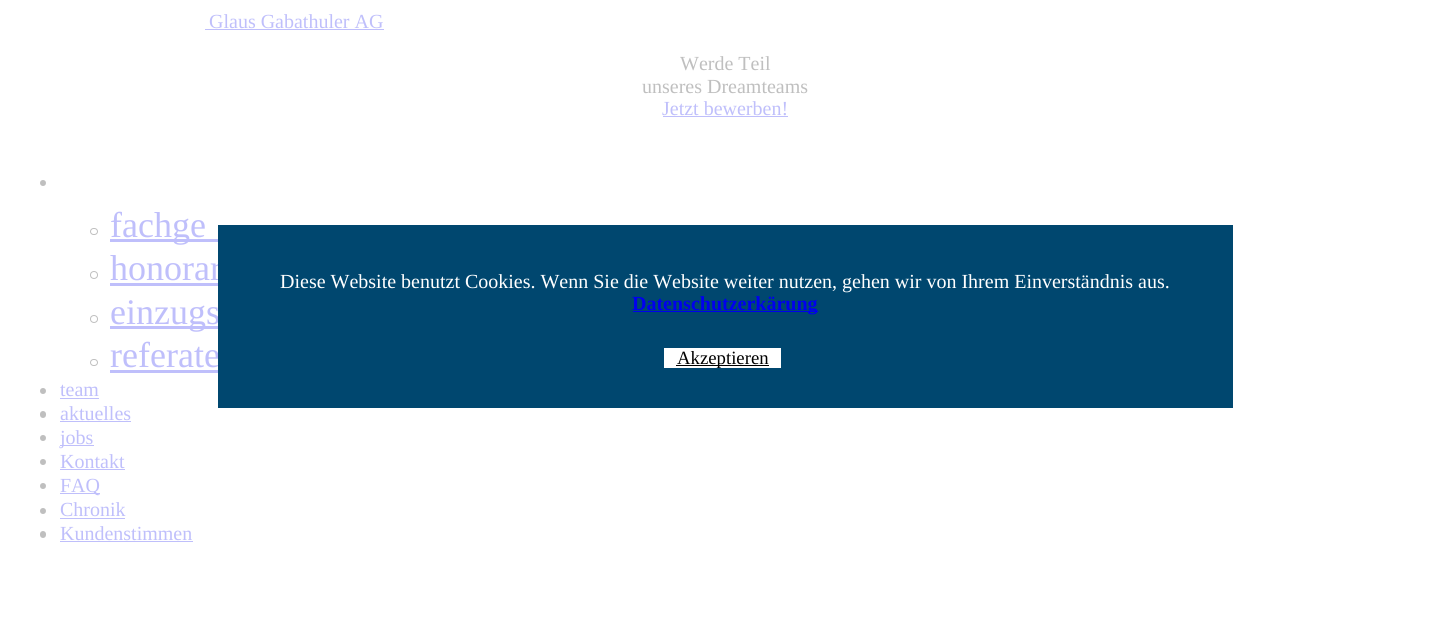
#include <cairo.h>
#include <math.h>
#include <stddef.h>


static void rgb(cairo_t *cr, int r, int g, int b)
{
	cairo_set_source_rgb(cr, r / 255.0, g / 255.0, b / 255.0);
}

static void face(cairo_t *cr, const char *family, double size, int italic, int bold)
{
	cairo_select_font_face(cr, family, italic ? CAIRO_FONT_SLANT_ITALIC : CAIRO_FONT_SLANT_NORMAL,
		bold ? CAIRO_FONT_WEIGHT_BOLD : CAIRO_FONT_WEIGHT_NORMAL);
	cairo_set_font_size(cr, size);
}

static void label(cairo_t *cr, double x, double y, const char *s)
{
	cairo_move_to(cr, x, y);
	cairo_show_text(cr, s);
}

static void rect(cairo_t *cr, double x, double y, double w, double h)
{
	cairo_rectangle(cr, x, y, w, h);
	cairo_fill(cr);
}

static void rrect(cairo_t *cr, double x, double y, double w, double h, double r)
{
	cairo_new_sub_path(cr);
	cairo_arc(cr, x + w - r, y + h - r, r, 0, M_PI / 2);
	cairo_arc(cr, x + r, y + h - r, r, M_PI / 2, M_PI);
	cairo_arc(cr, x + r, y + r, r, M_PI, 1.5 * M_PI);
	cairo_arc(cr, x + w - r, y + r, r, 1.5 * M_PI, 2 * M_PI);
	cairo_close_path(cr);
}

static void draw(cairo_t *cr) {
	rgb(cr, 255, 255, 255);
	cairo_paint(cr);
	face(cr, "Liberation Serif", 20, 0, 0);
	rgb(cr, 191, 191, 251);
	label(cr, 209, 28, "Glaus Gabathuler AG");
	rect(cr, 205, 29, 179, 1);
	rgb(cr, 191, 191, 191);
	label(cr, 680, 70, "Werde Teil");
	label(cr, 642, 93, "unseres Dreamteams");
	rgb(cr, 191, 191, 251);
	label(cr, 662, 115, "Jetzt bewerben!");
	rect(cr, 663, 116, 125, 1);
	rgb(cr, 191, 191, 191);
	cairo_new_path(cr);
	cairo_arc(cr, 43, 183, 3, 0, 2 * M_PI);
	cairo_fill(cr);
	rrect(cr, 90.5, 228.5, 7, 6, 3);
	cairo_set_line_width(cr, 1);
	cairo_stroke(cr);
	rgb(cr, 191, 191, 251);
	rect(cr, 110, 239, 108, 3);
	face(cr, "Liberation Serif", 36, 0, 0);
	label(cr, 110, 237, "fachge");
	cairo_new_path(cr);
	cairo_arc(cr, 94, 275, 3.5, 0, 2 * M_PI);
	rgb(cr, 191, 191, 191);
	cairo_stroke(cr);
	rgb(cr, 191, 191, 251);
	label(cr, 110, 280, "honorar");
	rect(cr, 110, 283, 113, 3);
	cairo_new_path(cr);
	cairo_arc(cr, 94, 319, 3.5, 0, 2 * M_PI);
	rgb(cr, 191, 191, 191);
	cairo_stroke(cr);
	rgb(cr, 191, 191, 251);
	rect(cr, 110, 326, 108, 3);
	label(cr, 110, 324, "einzugs");
	rrect(cr, 90.5, 359.5, 7, 6, 3);
	rgb(cr, 191, 191, 191);
	cairo_stroke(cr);
	rgb(cr, 191, 191, 251);
	label(cr, 110, 367, "referate");
	rect(cr, 110, 370, 111, 3);
	rgb(cr, 191, 191, 191);
	cairo_new_path(cr);
	cairo_arc(cr, 43, 391, 3, 0, 2 * M_PI);
	cairo_fill(cr);
	face(cr, "Liberation Serif", 20, 0, 0);
	rgb(cr, 191, 191, 251);
	label(cr, 60, 396, "team");
	rect(cr, 60, 398, 39, 1);
	rgb(cr, 191, 191, 191);
	rrect(cr, 40, 411, 6, 7, 3);
	cairo_fill(cr);
	rgb(cr, 191, 191, 251);
	label(cr, 60, 420, "aktuelles");
	rect(cr, 60, 421, 71, 1);
	rgb(cr, 191, 191, 191);
	cairo_new_path(cr);
	cairo_arc(cr, 43, 438, 3, 0, 2 * M_PI);
	cairo_fill(cr);
	rgb(cr, 191, 191, 251);
	rect(cr, 60, 445, 34, 1);
	label(cr, 60, 444, "jobs");
	rgb(cr, 191, 191, 191);
	cairo_new_path(cr);
	cairo_arc(cr, 43, 462, 3, 0, 2 * M_PI);
	cairo_fill(cr);
	rgb(cr, 191, 191, 251);
	label(cr, 60, 468, "Kontakt");
	rect(cr, 60, 469, 65, 1);
	rgb(cr, 191, 191, 191);
	cairo_new_path(cr);
	cairo_arc(cr, 43, 486, 3, 0, 2 * M_PI);
	cairo_fill(cr);
	rgb(cr, 191, 191, 251);
	rect(cr, 60, 493, 40, 1);
	label(cr, 60, 492, "FAQ");
	rgb(cr, 191, 191, 191);
	cairo_new_path(cr);
	cairo_arc(cr, 43, 511, 3, 0, 2 * M_PI);
	cairo_fill(cr);
	rgb(cr, 191, 191, 251);
	label(cr, 60, 516, "Chronik");
	rect(cr, 60, 518, 65, 1);
	rgb(cr, 191, 191, 191);
	rrect(cr, 40, 531, 6, 7, 3);
	cairo_fill(cr);
	rgb(cr, 191, 191, 251);
	label(cr, 60, 540, "Kundenstimmen");
	rect(cr, 60, 541, 133, 1);
	rgb(cr, 0, 71, 111);
	rect(cr, 218, 225, 1015, 183);
	rgb(cr, 255, 255, 255);
	label(cr, 280, 288, "Diese Website benutzt Cookies. Wenn Sie die Website weiter nutzen, gehen wir von Ihrem Einverständnis aus.");
	rgb(cr, 0, 0, 238);
	rect(cr, 633, 311, 185, 1);
	face(cr, "Liberation Serif", 20, 0, 1);
	label(cr, 632, 310, "Datenschutzerkärung");
	rgb(cr, 255, 255, 255);
	rect(cr, 664, 348, 117, 20);
	rgb(cr, 0, 0, 0);
	rect(cr, 676, 365, 93, 1);
	face(cr, "Liberation Serif", 18.75, 0, 0);
	label(cr, 677, 364, "Akzeptieren");
}

int main(void) {
	cairo_surface_t *surface = cairo_image_surface_create(CAIRO_FORMAT_RGB24, 1450, 632);
	cairo_t *cr = cairo_create(surface);
	cairo_font_options_t *options = cairo_font_options_create();
	cairo_font_options_set_hint_metrics(options, CAIRO_HINT_METRICS_OFF);
	cairo_font_options_set_hint_style(options, CAIRO_HINT_STYLE_NONE);
	cairo_set_font_options(cr, options);
	cairo_set_miter_limit(cr, 4);
	draw(cr);
	cairo_surface_write_to_png(surface, "render.png");
	cairo_font_options_destroy(options);
	cairo_destroy(cr);
	cairo_surface_destroy(surface);
	return 0;
}
